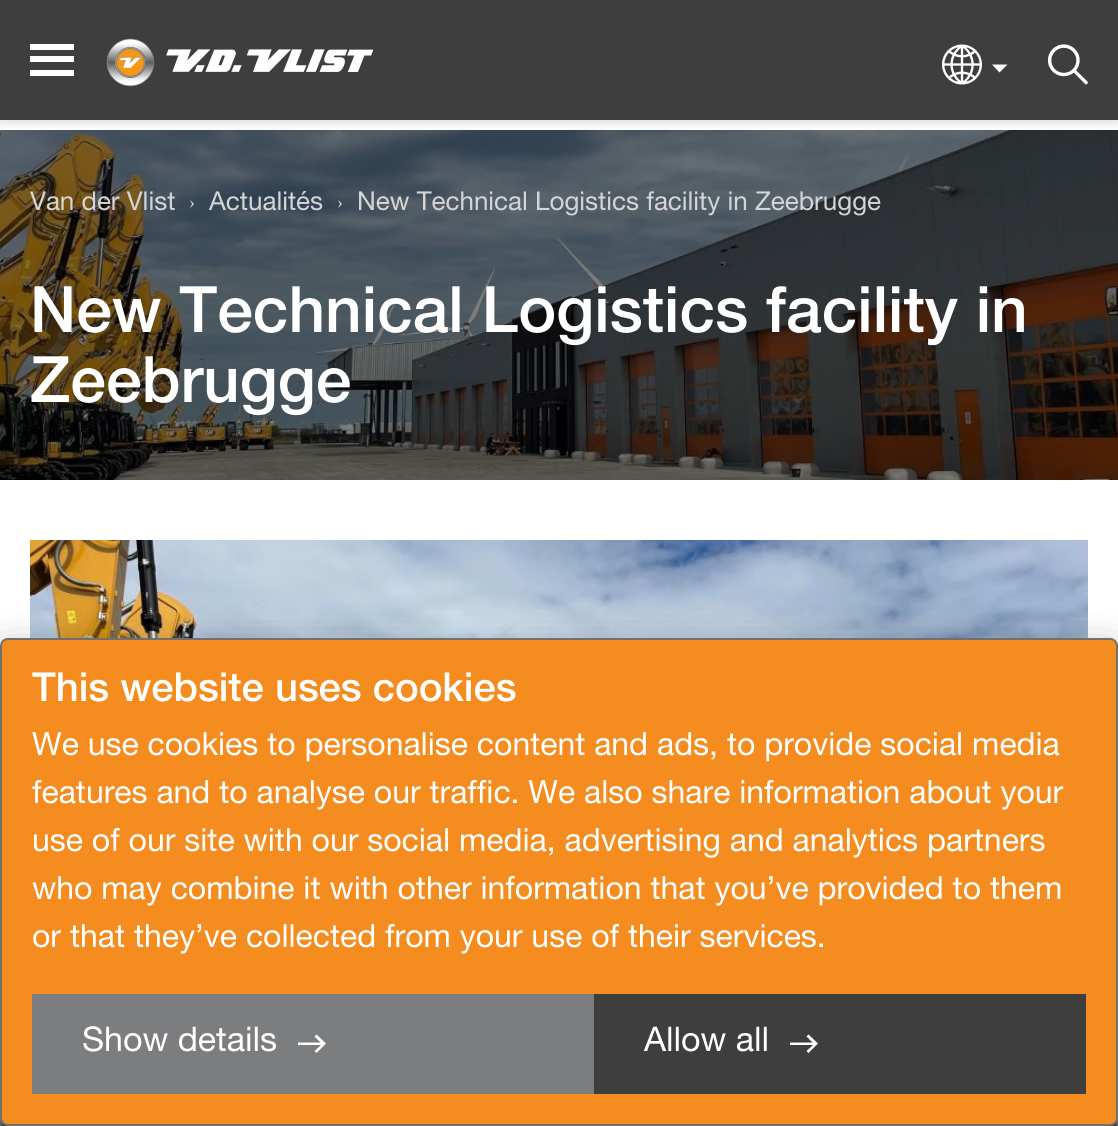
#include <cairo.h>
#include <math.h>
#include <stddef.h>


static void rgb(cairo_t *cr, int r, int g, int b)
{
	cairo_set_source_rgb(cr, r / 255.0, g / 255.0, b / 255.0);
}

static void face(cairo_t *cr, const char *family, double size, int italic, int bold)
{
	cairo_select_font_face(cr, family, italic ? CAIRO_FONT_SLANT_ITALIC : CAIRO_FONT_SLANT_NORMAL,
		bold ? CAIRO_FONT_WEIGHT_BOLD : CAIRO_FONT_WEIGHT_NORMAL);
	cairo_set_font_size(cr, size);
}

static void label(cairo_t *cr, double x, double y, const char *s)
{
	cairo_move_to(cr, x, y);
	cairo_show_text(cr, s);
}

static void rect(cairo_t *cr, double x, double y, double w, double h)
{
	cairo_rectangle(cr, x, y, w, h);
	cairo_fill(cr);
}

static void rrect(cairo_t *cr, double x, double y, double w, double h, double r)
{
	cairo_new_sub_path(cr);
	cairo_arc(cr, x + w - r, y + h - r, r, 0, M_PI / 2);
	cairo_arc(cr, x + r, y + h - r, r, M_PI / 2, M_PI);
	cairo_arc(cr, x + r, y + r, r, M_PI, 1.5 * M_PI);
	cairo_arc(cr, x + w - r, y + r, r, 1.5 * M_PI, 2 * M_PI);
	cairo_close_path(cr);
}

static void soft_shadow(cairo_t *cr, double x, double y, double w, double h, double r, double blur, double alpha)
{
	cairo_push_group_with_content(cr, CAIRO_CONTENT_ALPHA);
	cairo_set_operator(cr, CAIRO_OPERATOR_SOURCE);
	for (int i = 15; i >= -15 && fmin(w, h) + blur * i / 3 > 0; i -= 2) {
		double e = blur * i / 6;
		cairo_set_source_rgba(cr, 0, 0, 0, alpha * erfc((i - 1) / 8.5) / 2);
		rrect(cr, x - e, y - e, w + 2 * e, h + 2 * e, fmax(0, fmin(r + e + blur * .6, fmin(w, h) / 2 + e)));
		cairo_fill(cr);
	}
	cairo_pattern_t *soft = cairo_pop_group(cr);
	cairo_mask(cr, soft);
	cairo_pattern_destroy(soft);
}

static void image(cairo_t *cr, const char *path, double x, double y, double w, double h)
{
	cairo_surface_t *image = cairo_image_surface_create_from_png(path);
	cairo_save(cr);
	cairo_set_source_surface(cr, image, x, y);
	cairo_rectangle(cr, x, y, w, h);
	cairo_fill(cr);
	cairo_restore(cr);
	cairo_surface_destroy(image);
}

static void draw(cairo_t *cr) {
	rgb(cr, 255, 255, 255);
	cairo_paint(cr);
	image(cr, "image3.png", 0, 130, 1118, 350);
	rgb(cr, 0, 0, 0);
	soft_shadow(cr, 0, 2, 1118, 120, 0, 5, 0.16);
	rgb(cr, 62, 62, 62);
	rect(cr, 0, 0, 1118, 120);
	rgb(cr, 255, 255, 255);
	rect(cr, 30, 56, 44, 6);
	rect(cr, 30, 44, 44, 6);
	rect(cr, 30, 70, 44, 6);
	image(cr, "image0.png", 106, 38, 268, 49);
	image(cr, "image1.png", 942, 44, 40, 41);
	cairo_new_path(cr);
	cairo_move_to(cr, 999.5, 72.5);
	cairo_line_to(cr, 992, 64.5);
	cairo_line_to(cr, 1007.5, 64.5);
	cairo_close_path(cr);
	cairo_fill(cr);
	image(cr, "image2.png", 1047, 44, 41, 41);
	face(cr, "Helvetica Neue", 26, 0, 0);
	rgb(cr, 213, 213, 213);
	label(cr, 30, 210, "Van der Vlist");
	face(cr, "Liberation Serif", 18, 0, 0);
	label(cr, 189, 208, "›");
	face(cr, "Helvetica Neue", 26, 0, 0);
	label(cr, 209, 210, "Actualités");
	face(cr, "Liberation Serif", 18, 0, 0);
	label(cr, 337, 208, "›");
	face(cr, "Helvetica Neue", 26, 0, 0);
	label(cr, 357, 210, "New Technical Logistics facility in Zeebrugge");
	face(cr, "Helvetica Neue Medium", 64, 0, 0);
	rgb(cr, 255, 255, 255);
	label(cr, 30, 332, "New Technical Logistics facility in");
	label(cr, 30, 402, "Zeebrugge");
	image(cr, "image4.png", 30, 540, 1058, 98);
	rgb(cr, 62, 62, 62);
	rect(cr, 2, 1123, 1114, 3);
	rgb(cr, 112, 112, 112);
	rect(cr, 1116, 1118, 2, 8);
	rect(cr, 0, 1118, 2, 8);
	rgb(cr, 0, 0, 0);
	soft_shadow(cr, 0, 650, 1118, 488, 8, 20, 0.3);
	rgb(cr, 244, 140, 32);
	rrect(cr, 1, 639, 1116, 486, 7);
	cairo_fill_preserve(cr);
	rgb(cr, 112, 112, 112);
	cairo_stroke(cr);
	face(cr, "Helvetica Neue Medium", 40, 0, 0);
	rgb(cr, 255, 255, 255);
	label(cr, 32, 701, "This website uses cookies");
	face(cr, "Helvetica Neue", 32, 0, 0);
	label(cr, 32, 755, "We use cookies to personalise content and ads, to provide social media");
	label(cr, 32, 803, "features and to analyse our traffic. We also share information about your");
	label(cr, 32, 851, "use of our site with our social media, advertising and analytics partners");
	label(cr, 32, 899, "who may combine it with other information that you’ve provided to them");
	label(cr, 32, 947, "or that they’ve collected from your use of their services.");
	rgb(cr, 124, 125, 127);
	rect(cr, 32, 994, 562, 100);
	face(cr, "Helvetica Neue", 34, 0, 0);
	rgb(cr, 255, 255, 255);
	label(cr, 82, 1051, "Show details");
	cairo_new_path(cr);
	cairo_move_to(cr, 314.5, 1051);
	cairo_line_to(cr, 316.5, 1053);
	cairo_line_to(cr, 326, 1043.5);
	cairo_line_to(cr, 316.5, 1034.5);
	cairo_line_to(cr, 314.5, 1036.5);
	cairo_line_to(cr, 320.5, 1042.5);
	cairo_line_to(cr, 298, 1042.5);
	cairo_line_to(cr, 298, 1045);
	cairo_line_to(cr, 321, 1045);
	cairo_close_path(cr);
	cairo_fill(cr);
	rgb(cr, 62, 62, 62);
	rect(cr, 594, 994, 492, 100);
	rgb(cr, 255, 255, 255);
	label(cr, 644, 1051, "Allow all");
	cairo_new_path(cr);
	cairo_move_to(cr, 806.5, 1051);
	cairo_line_to(cr, 808.5, 1053);
	cairo_line_to(cr, 818, 1043.5);
	cairo_line_to(cr, 808.5, 1034.5);
	cairo_line_to(cr, 806.5, 1036.5);
	cairo_line_to(cr, 812.5, 1042.5);
	cairo_line_to(cr, 790, 1042.5);
	cairo_line_to(cr, 790, 1045);
	cairo_line_to(cr, 813, 1045);
	cairo_close_path(cr);
	cairo_fill(cr);
}

int main(void) {
	cairo_surface_t *surface = cairo_image_surface_create(CAIRO_FORMAT_RGB24, 1118, 1126);
	cairo_t *cr = cairo_create(surface);
	cairo_font_options_t *options = cairo_font_options_create();
	cairo_font_options_set_hint_metrics(options, CAIRO_HINT_METRICS_OFF);
	cairo_font_options_set_hint_style(options, CAIRO_HINT_STYLE_NONE);
	cairo_set_font_options(cr, options);
	cairo_set_miter_limit(cr, 4);
	draw(cr);
	cairo_surface_write_to_png(surface, "render.png");
	cairo_font_options_destroy(options);
	cairo_destroy(cr);
	cairo_surface_destroy(surface);
	return 0;
}
